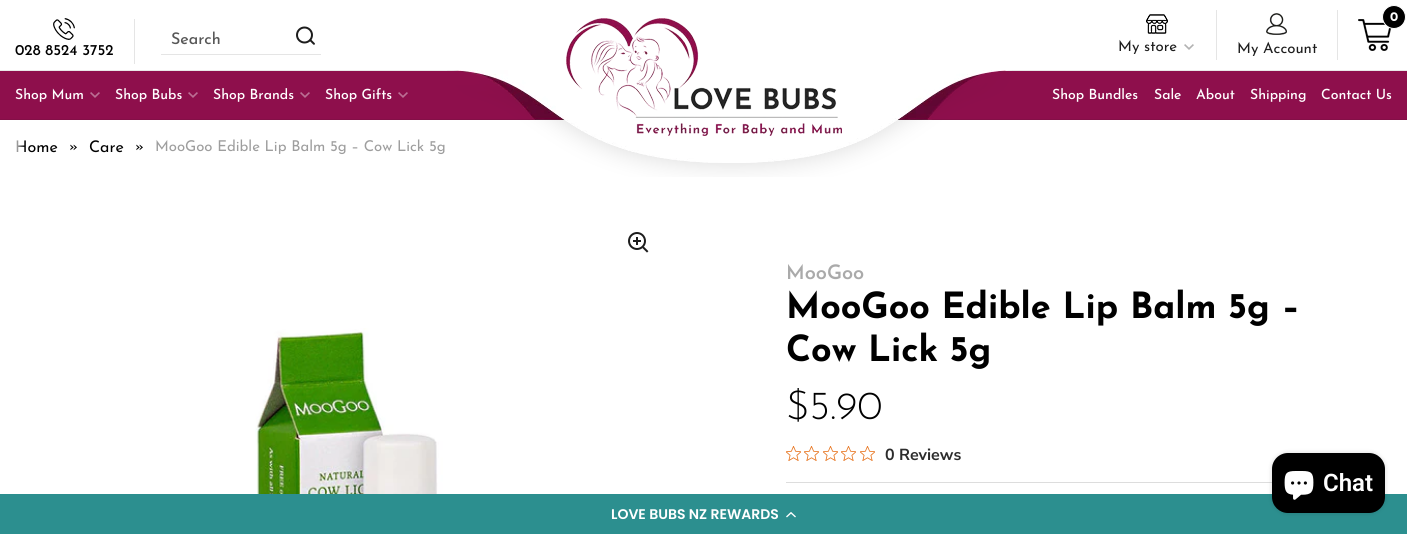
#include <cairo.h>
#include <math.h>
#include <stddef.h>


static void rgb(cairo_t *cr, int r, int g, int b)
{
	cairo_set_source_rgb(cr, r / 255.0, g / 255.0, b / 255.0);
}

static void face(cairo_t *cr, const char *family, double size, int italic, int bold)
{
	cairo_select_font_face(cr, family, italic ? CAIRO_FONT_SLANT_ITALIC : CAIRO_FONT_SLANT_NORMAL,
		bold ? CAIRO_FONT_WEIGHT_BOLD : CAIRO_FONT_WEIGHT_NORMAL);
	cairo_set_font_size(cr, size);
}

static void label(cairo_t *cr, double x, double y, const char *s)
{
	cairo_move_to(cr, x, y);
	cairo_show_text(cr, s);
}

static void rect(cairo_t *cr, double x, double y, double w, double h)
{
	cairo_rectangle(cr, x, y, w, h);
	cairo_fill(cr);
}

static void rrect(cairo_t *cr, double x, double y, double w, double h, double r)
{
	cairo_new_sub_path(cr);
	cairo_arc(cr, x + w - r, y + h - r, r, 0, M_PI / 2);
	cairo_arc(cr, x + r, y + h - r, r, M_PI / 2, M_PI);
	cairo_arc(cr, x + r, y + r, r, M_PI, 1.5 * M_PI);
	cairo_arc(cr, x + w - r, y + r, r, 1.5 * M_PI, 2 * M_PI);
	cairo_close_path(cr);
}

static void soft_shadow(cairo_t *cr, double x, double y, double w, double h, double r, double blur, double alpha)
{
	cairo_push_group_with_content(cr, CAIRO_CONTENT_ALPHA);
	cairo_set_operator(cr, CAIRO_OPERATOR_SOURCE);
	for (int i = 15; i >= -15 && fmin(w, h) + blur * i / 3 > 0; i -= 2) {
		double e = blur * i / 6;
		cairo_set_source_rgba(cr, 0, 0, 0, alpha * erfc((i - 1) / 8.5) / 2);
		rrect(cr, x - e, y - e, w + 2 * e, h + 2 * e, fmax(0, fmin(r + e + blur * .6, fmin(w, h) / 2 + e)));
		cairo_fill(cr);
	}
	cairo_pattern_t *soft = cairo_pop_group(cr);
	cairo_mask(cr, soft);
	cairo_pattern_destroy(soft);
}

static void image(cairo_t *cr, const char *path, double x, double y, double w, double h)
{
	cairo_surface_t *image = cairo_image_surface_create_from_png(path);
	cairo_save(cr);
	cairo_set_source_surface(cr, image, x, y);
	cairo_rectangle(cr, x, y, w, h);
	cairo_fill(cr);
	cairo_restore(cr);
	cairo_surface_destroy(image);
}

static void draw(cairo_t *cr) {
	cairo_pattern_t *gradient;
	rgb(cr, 255, 255, 255);
	cairo_paint(cr);
	rgb(cr, 232, 232, 232);
	rect(cr, 0, 70, 1407, 1);
	rgb(cr, 229, 229, 229);
	rect(cr, 161, 54, 160, 1);
	face(cr, "Josefin Sans Medium", 16, 0, 0);
	rgb(cr, 87, 87, 87);
	label(cr, 171, 44, "Search");
	image(cr, "image0.png", 296, 26, 19, 19);
	rgb(cr, 229, 229, 229);
	rect(cr, 134, 19, 1, 45);
	image(cr, "image1.png", 53, 18, 22, 22);
	face(cr, "Josefin Sans Medium", 15, 0, 0);
	rgb(cr, 0, 0, 0);
	label(cr, 15, 55, "028 8524 3752");
	rgb(cr, 142, 15, 76);
	rect(cr, 0, 71, 1407, 48);
	rgb(cr, 131, 16, 71);
	rect(cr, 0, 119, 1407, 1);
	image(cr, "image3.png", 447, 70, 565, 107);
	image(cr, "image2.png", 566, 18, 276, 118);
	rgb(cr, 229, 229, 229);
	rect(cr, 1337, 10, 1, 50);
	image(cr, "image4.png", 1358, 19, 34, 32);
	rgb(cr, 0, 0, 0);
	cairo_arc(cr, 1394, 17, 11.5, 0, 2 * M_PI);
	cairo_fill_preserve(cr);
	rgb(cr, 255, 255, 255);
	cairo_set_line_width(cr, 1);
	cairo_stroke(cr);
	face(cr, "Josefin Sans", 13, 0, 1);
	label(cr, 1390, 21, "0");
	rgb(cr, 229, 229, 229);
	rect(cr, 1216, 10, 1, 50);
	image(cr, "image5.png", 1146, 14, 22, 20);
	face(cr, "Josefin Sans", 15, 0, 0);
	rgb(cr, 29, 29, 29);
	label(cr, 1118, 51, "My store");
	image(cr, "image6.png", 1184, 44, 10, 6);
	image(cr, "image7.png", 1266, 13, 21, 22);
	label(cr, 1237, 53, "My Account");
	face(cr, "Josefin Sans Medium", 14, 0, 0);
	rgb(cr, 255, 255, 255);
	label(cr, 15, 99, "Shop Mum");
	image(cr, "image8.png", 90, 92, 10, 6);
	label(cr, 115, 99, "Shop Bubs");
	image(cr, "image8.png", 188, 92, 10, 6);
	label(cr, 213, 99, "Shop Brands");
	image(cr, "image8.png", 300, 92, 10, 6);
	label(cr, 325, 99, "Shop Gifts");
	image(cr, "image8.png", 398, 92, 10, 6);
	label(cr, 1052, 99, "Shop Bundles");
	label(cr, 1154, 99, "Sale");
	label(cr, 1196, 99, "About");
	label(cr, 1250, 99, "Shipping");
	label(cr, 1321, 99, "Contact Us");
	face(cr, "Josefin Sans", 16, 0, 0);
	rgb(cr, 0, 0, 0);
	label(cr, 15, 152, "Home");
	face(cr, "Josefin Sans", 14.9, 0, 0);
	label(cr, 69, 151, "»");
	face(cr, "Josefin Sans", 16, 0, 0);
	label(cr, 89, 152, "Care");
	face(cr, "Josefin Sans", 14.9, 0, 0);
	label(cr, 135, 151, "»");
	rgb(cr, 158, 158, 158);
	label(cr, 155, 151, "MooGoo Edible Lip Balm 5g – Cow Lick 5g");
	gradient = cairo_pattern_create_linear(0, 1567, 25, 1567);
	cairo_pattern_add_color_stop_rgba(gradient, 0.5, 1, 1, 1, 1);
	cairo_pattern_add_color_stop_rgba(gradient, 1, 1, 1, 1, 0);
	cairo_set_source(cr, gradient);
	cairo_pattern_destroy(gradient);
	rect(cr, 16, 140, 9, 12);
	image(cr, "image9.png", 628, 232, 21, 21);
	image(cr, "image10.png", 255, 328, 188, 166);
	face(cr, "Josefin Sans SemiBold", 20, 0, 0);
	rgb(cr, 170, 170, 170);
	label(cr, 786, 279, "MooGoo");
	face(cr, "Josefin Sans", 36, 0, 1);
	rgb(cr, 0, 0, 0);
	label(cr, 786, 318, "MooGoo Edible Lip Balm 5g –");
	label(cr, 786, 361, "Cow Lick 5g");
	face(cr, "Josefin Sans Light", 40, 0, 0);
	label(cr, 786, 419, "$5.90");
	image(cr, "image11.png", 786, 446, 15, 15);
	image(cr, "image11.png", 804, 446, 15, 15);
	image(cr, "image11.png", 823, 446, 15, 15);
	image(cr, "image11.png", 841, 446, 15, 15);
	image(cr, "image11.png", 860, 446, 15, 15);
	face(cr, "Nunito Sans ExtraLight", 16, 0, 0);
	rgb(cr, 44, 44, 44);
	label(cr, 885, 460, "0 Reviews");
	rgb(cr, 221, 221, 221);
	rect(cr, 786, 482, 486, 1);
	rgb(cr, 44, 143, 143);
	rect(cr, 0, 494, 1407, 40);
	rgb(cr, 0, 0, 0);
	soft_shadow(cr, 1272, 453, 113, 60, 16, 2.5, 0.15);
	rgb(cr, 0, 0, 0);
	rrect(cr, 1272, 453, 113, 60, 16);
	cairo_fill(cr);
	image(cr, "image12.png", 1284, 471, 30, 29);
	face(cr, "Roboto SemiBold", 24, 0, 0);
	rgb(cr, 255, 255, 255);
	label(cr, 1323, 491, "Chat");
	face(cr, "Poppins SemiBold", 14, 0, 0);
	label(cr, 611, 519, "LOVE BUBS NZ REWARDS");
	image(cr, "image13.png", 786, 512, 10, 6);
}

int main(void) {
	cairo_surface_t *surface = cairo_image_surface_create(CAIRO_FORMAT_RGB24, 1407, 534);
	cairo_t *cr = cairo_create(surface);
	cairo_font_options_t *options = cairo_font_options_create();
	cairo_font_options_set_hint_metrics(options, CAIRO_HINT_METRICS_OFF);
	cairo_font_options_set_hint_style(options, CAIRO_HINT_STYLE_NONE);
	cairo_set_font_options(cr, options);
	cairo_set_miter_limit(cr, 4);
	draw(cr);
	cairo_surface_write_to_png(surface, "render.png");
	cairo_font_options_destroy(options);
	cairo_destroy(cr);
	cairo_surface_destroy(surface);
	return 0;
}
